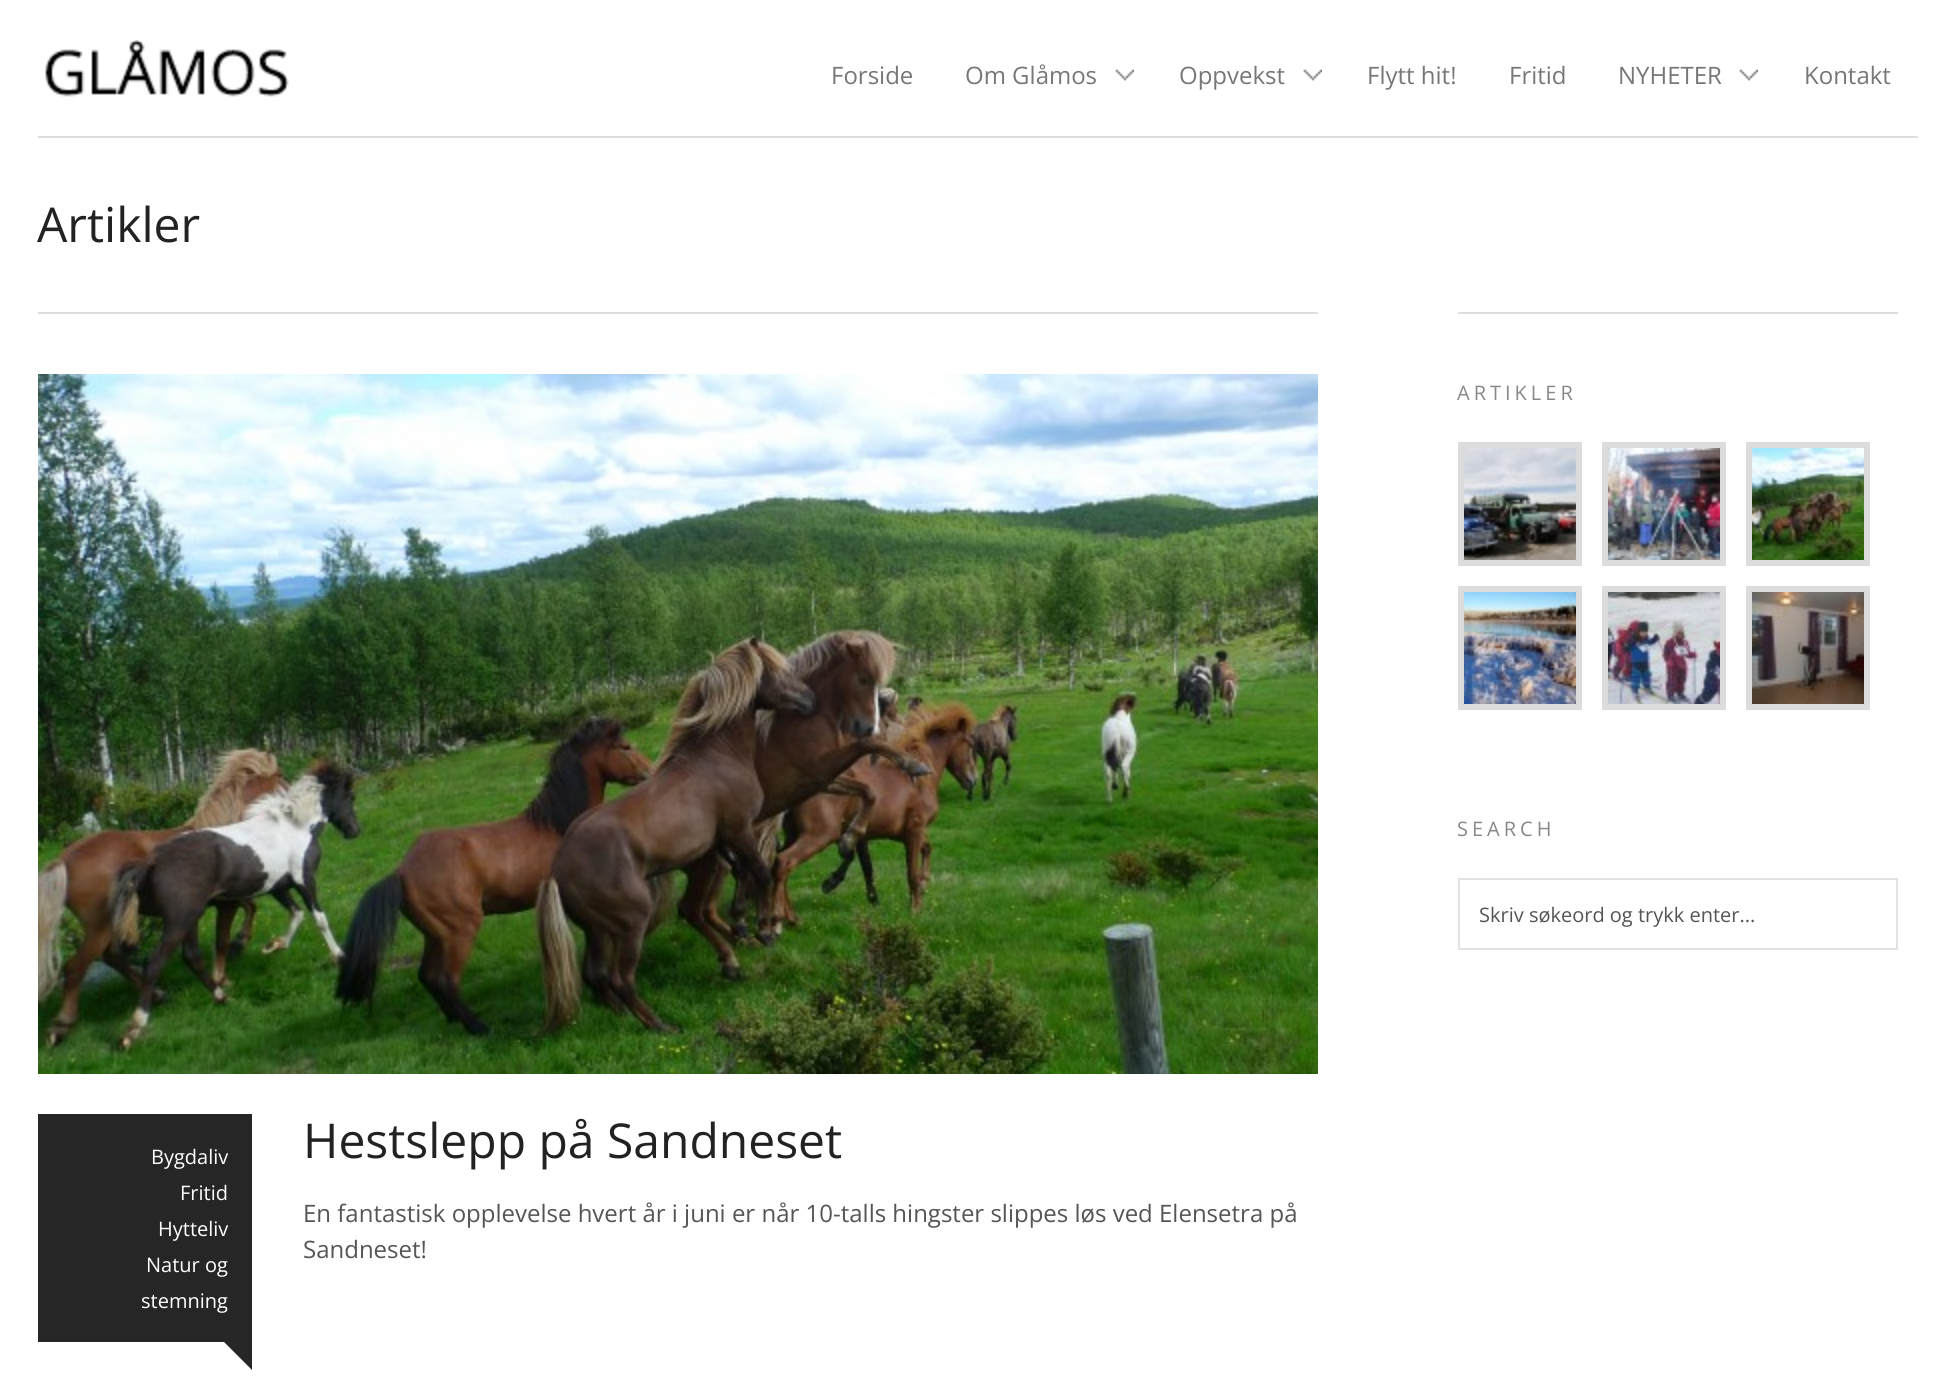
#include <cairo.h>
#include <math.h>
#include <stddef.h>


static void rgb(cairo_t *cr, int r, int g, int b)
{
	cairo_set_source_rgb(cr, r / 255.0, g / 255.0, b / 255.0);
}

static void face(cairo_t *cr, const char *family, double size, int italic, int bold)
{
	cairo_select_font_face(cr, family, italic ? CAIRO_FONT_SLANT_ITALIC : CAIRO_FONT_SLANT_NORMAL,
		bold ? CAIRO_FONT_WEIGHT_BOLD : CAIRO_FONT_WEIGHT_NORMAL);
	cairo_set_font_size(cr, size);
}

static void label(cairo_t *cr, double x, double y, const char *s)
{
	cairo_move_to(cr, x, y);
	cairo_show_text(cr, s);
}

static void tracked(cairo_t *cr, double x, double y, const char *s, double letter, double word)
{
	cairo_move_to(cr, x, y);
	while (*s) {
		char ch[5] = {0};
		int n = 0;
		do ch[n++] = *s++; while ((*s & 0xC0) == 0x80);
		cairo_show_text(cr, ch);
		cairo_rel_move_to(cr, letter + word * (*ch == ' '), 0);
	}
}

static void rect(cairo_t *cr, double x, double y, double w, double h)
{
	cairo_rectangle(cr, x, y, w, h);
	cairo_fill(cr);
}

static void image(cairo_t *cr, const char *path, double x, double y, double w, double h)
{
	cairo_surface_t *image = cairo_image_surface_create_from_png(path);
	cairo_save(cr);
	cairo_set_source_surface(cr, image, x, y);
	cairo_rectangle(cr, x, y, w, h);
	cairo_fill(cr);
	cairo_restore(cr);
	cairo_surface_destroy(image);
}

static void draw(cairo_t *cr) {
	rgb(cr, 255, 255, 255);
	cairo_paint(cr);
	image(cr, "image0.png", 45, 40, 244, 57);
	face(cr, "Open Sans", 24, 0, 0);
	rgb(cr, 119, 119, 119);
	label(cr, 831, 84, "Forside");
	label(cr, 965, 84, "Om Glåmos");
	image(cr, "image1.png", 1115, 69, 19, 12);
	label(cr, 1179, 84, "Oppvekst");
	image(cr, "image1.png", 1303, 69, 19, 12);
	label(cr, 1367, 84, "Flytt hit!");
	label(cr, 1509, 84, "Fritid");
	label(cr, 1618, 84, "NYHETER");
	image(cr, "image1.png", 1739, 69, 19, 12);
	label(cr, 1804, 84, "Kontakt");
	rgb(cr, 220, 220, 220);
	rect(cr, 38, 136, 1880, 2);
	face(cr, "Open Sans", 48, 0, 0);
	rgb(cr, 34, 34, 34);
	label(cr, 37, 242, "Artikler");
	rgb(cr, 220, 220, 220);
	rect(cr, 1458, 312, 440, 2);
	face(cr, "Open Sans", 20, 0, 0);
	rgb(cr, 136, 136, 136);
	tracked(cr, 1457, 400, "ARTIKLER", 4, 0);
	cairo_rectangle(cr, 1461, 445, 118, 118);
	rgb(cr, 220, 220, 220);
	cairo_set_line_width(cr, 6);
	cairo_stroke(cr);
	image(cr, "image2.png", 1464, 448, 112, 112);
	cairo_rectangle(cr, 1605, 445, 118, 118);
	cairo_stroke(cr);
	image(cr, "image3.png", 1608, 448, 112, 112);
	cairo_rectangle(cr, 1749, 445, 118, 118);
	cairo_stroke(cr);
	image(cr, "image4.png", 1752, 448, 112, 112);
	cairo_rectangle(cr, 1461, 589, 118, 118);
	cairo_stroke(cr);
	image(cr, "image5.png", 1464, 592, 112, 112);
	cairo_rectangle(cr, 1605, 589, 118, 118);
	cairo_stroke(cr);
	image(cr, "image6.png", 1608, 592, 112, 112);
	cairo_rectangle(cr, 1749, 589, 118, 118);
	cairo_stroke(cr);
	image(cr, "image7.png", 1752, 592, 112, 112);
	rgb(cr, 136, 136, 136);
	tracked(cr, 1457, 836, "SEARCH", 4, 0);
	cairo_rectangle(cr, 1459, 879, 438, 70);
	rgb(cr, 227, 227, 227);
	cairo_set_line_width(cr, 2);
	cairo_stroke(cr);
	rgb(cr, 85, 85, 85);
	label(cr, 1479, 922, "Skriv søkeord og trykk enter...");
	rgb(cr, 220, 220, 220);
	rect(cr, 38, 312, 1280, 2);
	image(cr, "image8.png", 38, 374, 1280, 700);
	rgb(cr, 38, 38, 38);
	rect(cr, 38, 1114, 214, 228);
	rgb(cr, 255, 255, 255);
	label(cr, 151, 1164, "Bygdaliv");
	label(cr, 180, 1200, "Fritid");
	label(cr, 158, 1236, "Hytteliv");
	label(cr, 146, 1272, "Natur og");
	label(cr, 141, 1308, "stemning");
	rgb(cr, 38, 38, 38);
	cairo_new_path(cr);
	cairo_move_to(cr, 252, 1342);
	cairo_line_to(cr, 252, 1370);
	cairo_line_to(cr, 224, 1342);
	cairo_close_path(cr);
	cairo_fill(cr);
	face(cr, "Open Sans", 48, 0, 0);
	rgb(cr, 34, 34, 34);
	label(cr, 303, 1158, "Hestslepp på Sandneset");
	face(cr, "Open Sans", 24, 0, 0);
	rgb(cr, 85, 85, 85);
	label(cr, 303, 1222, "En fantastisk opplevelse hvert år i juni er når 10-talls hingster slippes løs ved Elensetra på");
	label(cr, 303, 1258, "Sandneset!");
}

int main(void) {
	cairo_surface_t *surface = cairo_image_surface_create(CAIRO_FORMAT_RGB24, 1953, 1376);
	cairo_t *cr = cairo_create(surface);
	cairo_font_options_t *options = cairo_font_options_create();
	cairo_font_options_set_hint_metrics(options, CAIRO_HINT_METRICS_OFF);
	cairo_font_options_set_hint_style(options, CAIRO_HINT_STYLE_NONE);
	cairo_set_font_options(cr, options);
	cairo_set_miter_limit(cr, 4);
	draw(cr);
	cairo_surface_write_to_png(surface, "render.png");
	cairo_font_options_destroy(options);
	cairo_destroy(cr);
	cairo_surface_destroy(surface);
	return 0;
}
